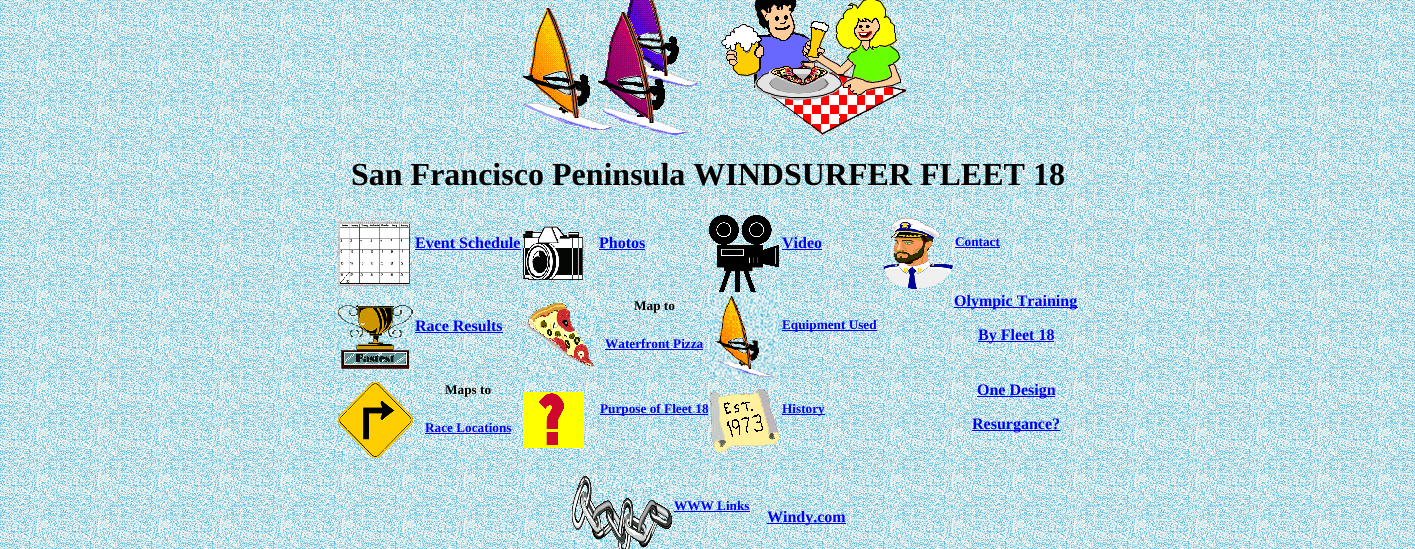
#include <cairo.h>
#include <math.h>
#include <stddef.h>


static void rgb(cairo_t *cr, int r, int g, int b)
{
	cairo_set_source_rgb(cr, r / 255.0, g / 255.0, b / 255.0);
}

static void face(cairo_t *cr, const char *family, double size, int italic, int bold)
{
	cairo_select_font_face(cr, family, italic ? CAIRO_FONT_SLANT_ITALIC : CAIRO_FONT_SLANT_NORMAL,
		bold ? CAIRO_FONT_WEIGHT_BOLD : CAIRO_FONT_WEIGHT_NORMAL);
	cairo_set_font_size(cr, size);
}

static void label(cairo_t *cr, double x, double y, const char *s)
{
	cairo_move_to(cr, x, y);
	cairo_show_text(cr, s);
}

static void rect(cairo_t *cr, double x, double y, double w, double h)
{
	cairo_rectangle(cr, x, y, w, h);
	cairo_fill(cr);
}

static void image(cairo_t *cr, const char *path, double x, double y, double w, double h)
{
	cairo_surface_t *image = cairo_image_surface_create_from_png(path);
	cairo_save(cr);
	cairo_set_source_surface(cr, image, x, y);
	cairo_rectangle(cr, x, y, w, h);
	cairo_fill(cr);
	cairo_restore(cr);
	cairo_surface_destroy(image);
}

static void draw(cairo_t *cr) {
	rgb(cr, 255, 255, 255);
	cairo_paint(cr);
	image(cr, "image0.png", 0, 0, 1415, 549);
	image(cr, "image1.png", 523, 0, 383, 135);
	face(cr, "Liberation Serif", 32, 0, 1);
	rgb(cr, 0, 0, 0);
	label(cr, 351, 185, "San Francisco Peninsula WINDSURFER FLEET 18");
	image(cr, "image2.png", 338, 221, 72, 65);
	face(cr, "Liberation Serif", 16, 0, 1);
	rgb(cr, 0, 0, 238);
	label(cr, 415, 248, "Event Schedule");
	rect(cr, 415, 249, 106, 1);
	image(cr, "image3.png", 523, 226, 60, 54);
	label(cr, 599, 248, "Photos");
	rect(cr, 599, 249, 46, 1);
	image(cr, "image4.png", 709, 215, 70, 77);
	label(cr, 782, 248, "Video");
	rect(cr, 782, 249, 40, 1);
	image(cr, "image5.png", 884, 217, 69, 72);
	face(cr, "Liberation Serif", 13.25, 0, 1);
	label(cr, 955, 246, "Contact");
	rect(cr, 955, 247, 45, 1);
	image(cr, "image6.png", 338, 298, 75, 76);
	face(cr, "Liberation Serif", 16, 0, 1);
	label(cr, 415, 331, "Race Results");
	rect(cr, 415, 332, 88, 1);
	image(cr, "image7.png", 523, 298, 75, 76);
	face(cr, "Liberation Serif", 13.25, 0, 1);
	rgb(cr, 0, 0, 0);
	label(cr, 634, 310, "Map to");
	rgb(cr, 0, 0, 238);
	label(cr, 605, 348, "Waterfront Pizza");
	rect(cr, 605, 349, 98, 1);
	image(cr, "image8.png", 710, 293, 70, 87);
	rect(cr, 782, 330, 95, 1);
	label(cr, 782, 329, "Equipment Used");
	rect(cr, 954, 307, 124, 1);
	face(cr, "Liberation Serif", 16, 0, 1);
	label(cr, 954, 306, "Olympic Training");
	rect(cr, 978, 341, 76, 1);
	label(cr, 978, 340, "By Fleet 18");
	image(cr, "image9.png", 338, 382, 75, 76);
	face(cr, "Liberation Serif", 13.25, 0, 1);
	rgb(cr, 0, 0, 0);
	label(cr, 445, 394, "Maps to");
	rgb(cr, 0, 0, 238);
	label(cr, 425, 432, "Race Locations");
	rect(cr, 425, 433, 86, 1);
	image(cr, "image10.png", 523, 392, 61, 56);
	rect(cr, 600, 414, 108, 1);
	label(cr, 600, 413, "Purpose of Fleet 18");
	image(cr, "image11.png", 710, 389, 69, 63);
	rect(cr, 782, 414, 43, 1);
	label(cr, 782, 413, "History");
	rect(cr, 977, 396, 78, 1);
	face(cr, "Liberation Serif", 16, 0, 1);
	label(cr, 977, 395, "One Design");
	rect(cr, 972, 430, 88, 1);
	label(cr, 972, 429, "Resurgance?");
	image(cr, "image12.png", 572, 476, 100, 73);
	face(cr, "Liberation Serif", 13.25, 0, 1);
	label(cr, 674, 510, "WWW Links");
	rect(cr, 674, 511, 76, 1);
	rect(cr, 767, 523, 79, 1);
	face(cr, "Liberation Serif", 16, 0, 1);
	label(cr, 767, 522, "Windy.com");
}

int main(void) {
	cairo_surface_t *surface = cairo_image_surface_create(CAIRO_FORMAT_RGB24, 1415, 549);
	cairo_t *cr = cairo_create(surface);
	cairo_font_options_t *options = cairo_font_options_create();
	cairo_font_options_set_hint_metrics(options, CAIRO_HINT_METRICS_OFF);
	cairo_font_options_set_hint_style(options, CAIRO_HINT_STYLE_NONE);
	cairo_set_font_options(cr, options);
	cairo_set_miter_limit(cr, 4);
	draw(cr);
	cairo_surface_write_to_png(surface, "render.png");
	cairo_font_options_destroy(options);
	cairo_destroy(cr);
	cairo_surface_destroy(surface);
	return 0;
}
